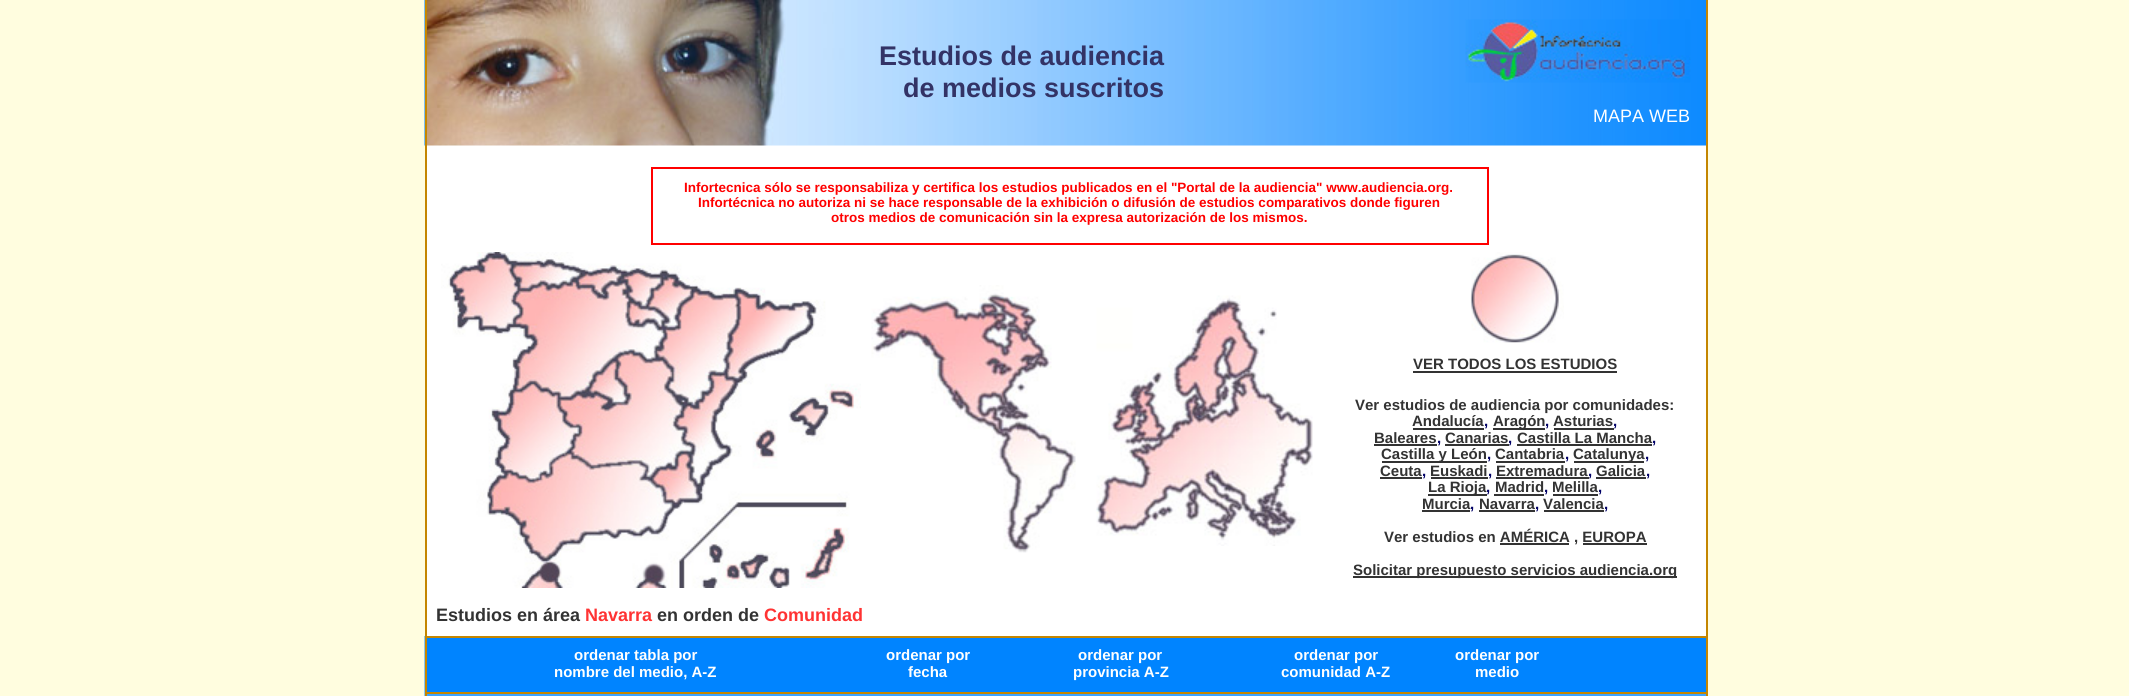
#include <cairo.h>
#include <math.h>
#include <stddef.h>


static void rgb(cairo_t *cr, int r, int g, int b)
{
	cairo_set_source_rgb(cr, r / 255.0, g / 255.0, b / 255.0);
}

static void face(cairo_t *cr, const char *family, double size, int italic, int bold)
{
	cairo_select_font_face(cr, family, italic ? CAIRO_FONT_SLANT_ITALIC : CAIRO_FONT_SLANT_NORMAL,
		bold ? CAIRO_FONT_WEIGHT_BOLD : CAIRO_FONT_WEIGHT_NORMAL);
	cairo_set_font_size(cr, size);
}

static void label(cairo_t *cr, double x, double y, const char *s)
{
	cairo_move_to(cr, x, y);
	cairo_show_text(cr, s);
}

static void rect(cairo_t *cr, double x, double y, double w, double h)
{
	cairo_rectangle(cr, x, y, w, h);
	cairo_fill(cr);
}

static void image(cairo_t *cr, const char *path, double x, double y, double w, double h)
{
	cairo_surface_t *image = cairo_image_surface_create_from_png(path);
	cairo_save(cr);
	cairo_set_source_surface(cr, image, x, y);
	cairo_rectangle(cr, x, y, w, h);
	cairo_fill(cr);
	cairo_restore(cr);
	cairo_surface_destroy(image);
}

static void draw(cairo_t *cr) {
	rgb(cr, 255, 253, 223);
	cairo_paint(cr);
	rgb(cr, 255, 255, 255);
	rect(cr, 427, 145, 1279, 491);
	image(cr, "image0.png", 424, 0, 1282, 146);
	rgb(cr, 196, 134, 0);
	rect(cr, 1706, 0, 2, 696);
	rect(cr, 425, 0, 2, 636);
	face(cr, "Liberation Sans", 27, 0, 1);
	rgb(cr, 51, 51, 102);
	label(cr, 879, 65, "Estudios de audiencia");
	label(cr, 903, 97, "de medios suscritos");
	image(cr, "image1.png", 1465, 19, 226, 64);
	face(cr, "Liberation Sans", 18, 0, 0);
	rgb(cr, 255, 255, 255);
	label(cr, 1593, 122, "MAPA WEB");
	rgb(cr, 255, 0, 0);
	rect(cr, 651, 167, 837, 2);
	rect(cr, 1487, 167, 2, 78);
	rect(cr, 651, 243, 837, 2);
	rect(cr, 651, 167, 2, 78);
	face(cr, "Liberation Sans", 13.5, 0, 1);
	label(cr, 684, 192, "Infortecnica sólo se responsabiliza y certifica los estudios publicados en el \"Portal de la audiencia\" www.audiencia.org.");
	label(cr, 698, 207, "Infortécnica no autoriza ni se hace responsable de la exhibición o difusión de estudios comparativos donde figuren");
	label(cr, 831, 222, "otros medios de comunicación sin la expresa autorización de los mismos.");
	image(cr, "image2.png", 441, 252, 420, 336);
	image(cr, "image3.png", 871, 285, 205, 268);
	image(cr, "image4.png", 1096, 295, 217, 251);
	image(cr, "image5.png", 1470, 252, 94, 91);
	face(cr, "Liberation Sans", 15, 0, 1);
	rgb(cr, 51, 51, 51);
	label(cr, 1413, 369, "VER TODOS LOS ESTUDIOS");
	rect(cr, 1413, 371, 204, 2);
	label(cr, 1355, 410, "Ver estudios de audiencia por comunidades:");
	label(cr, 1412, 426, "Andalucía");
	rgb(cr, 0, 0, 102);
	label(cr, 1484, 426, ",");
	rgb(cr, 51, 51, 51);
	rect(cr, 1413, 428, 71, 2);
	rect(cr, 1493, 428, 52, 2);
	label(cr, 1493, 426, "Aragón");
	rgb(cr, 0, 0, 102);
	label(cr, 1545, 426, ",");
	rgb(cr, 51, 51, 51);
	label(cr, 1553, 426, "Asturias");
	rgb(cr, 0, 0, 102);
	label(cr, 1613, 426, ",");
	rgb(cr, 51, 51, 51);
	rect(cr, 1554, 428, 60, 2);
	label(cr, 1374, 443, "Baleares");
	rgb(cr, 0, 0, 102);
	label(cr, 1437, 443, ",");
	rgb(cr, 51, 51, 51);
	rect(cr, 1374, 444, 63, 2);
	label(cr, 1445, 443, "Canarias");
	rgb(cr, 0, 0, 102);
	label(cr, 1508, 443, ",");
	rgb(cr, 51, 51, 51);
	rect(cr, 1445, 444, 64, 2);
	label(cr, 1517, 443, "Castilla La Mancha");
	rgb(cr, 0, 0, 102);
	label(cr, 1652, 443, ",");
	rgb(cr, 51, 51, 51);
	rect(cr, 1517, 444, 135, 2);
	rect(cr, 1382, 461, 105, 2);
	label(cr, 1381, 459, "Castilla y León");
	rgb(cr, 0, 0, 102);
	label(cr, 1487, 459, ",");
	rgb(cr, 51, 51, 51);
	label(cr, 1495, 459, "Cantabria");
	rgb(cr, 0, 0, 102);
	label(cr, 1565, 459, ",");
	rgb(cr, 51, 51, 51);
	rect(cr, 1496, 461, 69, 2);
	rect(cr, 1574, 461, 70, 2);
	label(cr, 1573, 459, "Catalunya");
	rgb(cr, 0, 0, 102);
	label(cr, 1645, 459, ",");
	rgb(cr, 51, 51, 51);
	label(cr, 1380, 476, "Ceuta");
	rgb(cr, 0, 0, 102);
	label(cr, 1422, 476, ",");
	rgb(cr, 51, 51, 51);
	rect(cr, 1380, 477, 42, 2);
	label(cr, 1430, 476, "Euskadi");
	rgb(cr, 0, 0, 102);
	label(cr, 1488, 476, ",");
	rgb(cr, 51, 51, 51);
	rect(cr, 1431, 477, 57, 2);
	label(cr, 1496, 476, "Extremadura");
	rect(cr, 1496, 477, 93, 2);
	rgb(cr, 0, 0, 102);
	label(cr, 1588, 476, ",");
	rgb(cr, 51, 51, 51);
	label(cr, 1596, 476, "Galicia");
	rgb(cr, 0, 0, 102);
	label(cr, 1646, 476, ",");
	rgb(cr, 51, 51, 51);
	rect(cr, 1596, 477, 50, 2);
	rect(cr, 1428, 494, 59, 2);
	label(cr, 1428, 492, "La Rioja");
	rgb(cr, 0, 0, 102);
	label(cr, 1486, 492, ",");
	rgb(cr, 51, 51, 51);
	label(cr, 1495, 492, "Madrid");
	rgb(cr, 0, 0, 102);
	label(cr, 1544, 492, ",");
	rgb(cr, 51, 51, 51);
	rect(cr, 1494, 494, 50, 2);
	label(cr, 1552, 492, "Melilla");
	rgb(cr, 0, 0, 102);
	label(cr, 1598, 492, ",");
	rgb(cr, 51, 51, 51);
	rect(cr, 1553, 494, 45, 2);
	label(cr, 1422, 509, "Murcia");
	rgb(cr, 0, 0, 102);
	label(cr, 1470, 509, ",");
	rgb(cr, 51, 51, 51);
	rect(cr, 1422, 510, 48, 2);
	label(cr, 1479, 509, "Navarra");
	rgb(cr, 0, 0, 102);
	label(cr, 1535, 509, ",");
	rgb(cr, 51, 51, 51);
	rect(cr, 1479, 510, 56, 2);
	label(cr, 1543, 509, "Valencia");
	rgb(cr, 0, 0, 102);
	label(cr, 1604, 509, ",");
	rgb(cr, 51, 51, 51);
	rect(cr, 1544, 510, 60, 2);
	label(cr, 1384, 542, "Ver estudios en AMÉRICA , EUROPA");
	rect(cr, 1500, 543, 69, 2);
	rect(cr, 1583, 543, 64, 2);
	rect(cr, 1353, 576, 324, 2);
	label(cr, 1353, 575, "Solicitar presupuesto servicios audiencia.org");
	face(cr, "Liberation Sans", 18, 0, 1);
	label(cr, 436, 621, "Estudios en área");
	rgb(cr, 255, 51, 51);
	label(cr, 585, 621, "Navarra");
	rgb(cr, 51, 51, 51);
	label(cr, 657, 621, "en orden de");
	rgb(cr, 255, 51, 51);
	label(cr, 764, 621, "Comunidad");
	image(cr, "image6.png", 424, 636, 1, 60);
	rgb(cr, 60, 163, 255);
	rect(cr, 425, 694, 1281, 2);
	rgb(cr, 196, 134, 0);
	rect(cr, 425, 636, 2, 60);
	rect(cr, 425, 636, 1282, 2);
	rgb(cr, 0, 132, 255);
	rect(cr, 427, 638, 1279, 54);
	face(cr, "Liberation Sans", 15, 0, 1);
	rgb(cr, 255, 255, 255);
	label(cr, 574, 660, "ordenar tabla por");
	label(cr, 554, 677, "nombre del medio, A-Z");
	label(cr, 886, 660, "ordenar por");
	label(cr, 908, 677, "fecha");
	label(cr, 1078, 660, "ordenar por");
	label(cr, 1073, 677, "provincia A-Z");
	label(cr, 1294, 660, "ordenar por");
	label(cr, 1281, 677, "comunidad A-Z");
	label(cr, 1455, 660, "ordenar por");
	label(cr, 1475, 677, "medio");
	rgb(cr, 196, 134, 0);
	rect(cr, 425, 692, 1282, 2);
}

int main(void) {
	cairo_surface_t *surface = cairo_image_surface_create(CAIRO_FORMAT_RGB24, 2129, 696);
	cairo_t *cr = cairo_create(surface);
	cairo_font_options_t *options = cairo_font_options_create();
	cairo_font_options_set_hint_metrics(options, CAIRO_HINT_METRICS_OFF);
	cairo_font_options_set_hint_style(options, CAIRO_HINT_STYLE_NONE);
	cairo_set_font_options(cr, options);
	cairo_set_miter_limit(cr, 4);
	draw(cr);
	cairo_surface_write_to_png(surface, "render.png");
	cairo_font_options_destroy(options);
	cairo_destroy(cr);
	cairo_surface_destroy(surface);
	return 0;
}
